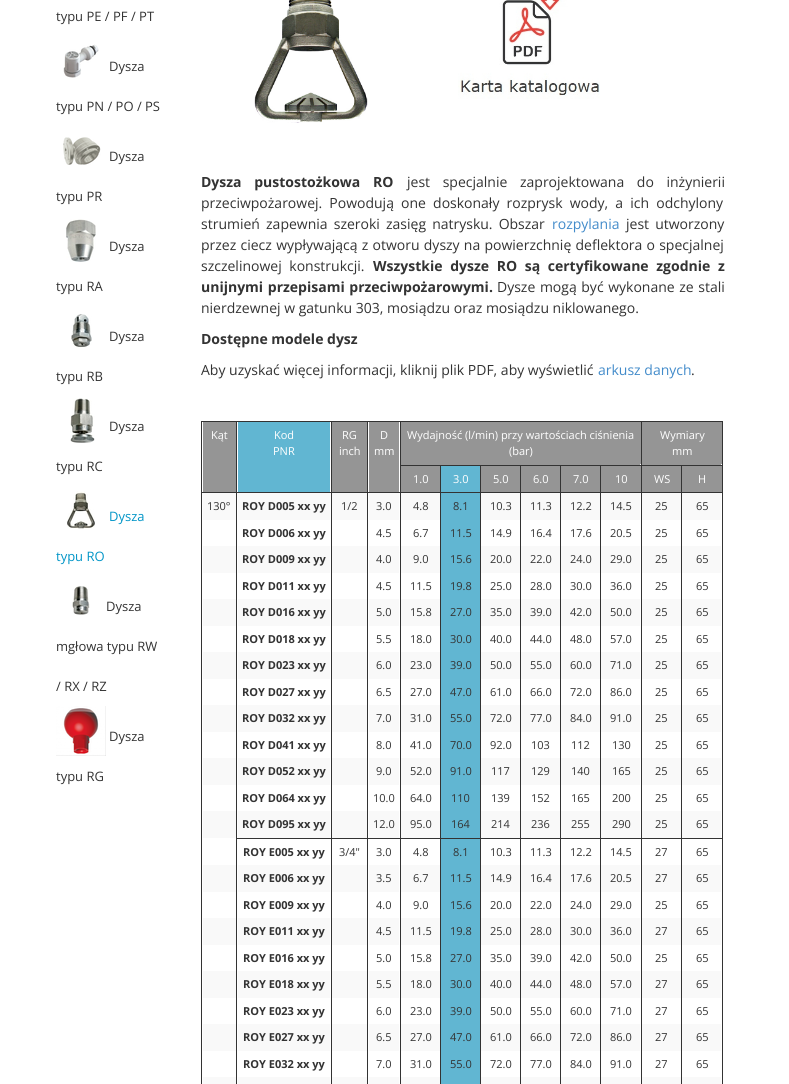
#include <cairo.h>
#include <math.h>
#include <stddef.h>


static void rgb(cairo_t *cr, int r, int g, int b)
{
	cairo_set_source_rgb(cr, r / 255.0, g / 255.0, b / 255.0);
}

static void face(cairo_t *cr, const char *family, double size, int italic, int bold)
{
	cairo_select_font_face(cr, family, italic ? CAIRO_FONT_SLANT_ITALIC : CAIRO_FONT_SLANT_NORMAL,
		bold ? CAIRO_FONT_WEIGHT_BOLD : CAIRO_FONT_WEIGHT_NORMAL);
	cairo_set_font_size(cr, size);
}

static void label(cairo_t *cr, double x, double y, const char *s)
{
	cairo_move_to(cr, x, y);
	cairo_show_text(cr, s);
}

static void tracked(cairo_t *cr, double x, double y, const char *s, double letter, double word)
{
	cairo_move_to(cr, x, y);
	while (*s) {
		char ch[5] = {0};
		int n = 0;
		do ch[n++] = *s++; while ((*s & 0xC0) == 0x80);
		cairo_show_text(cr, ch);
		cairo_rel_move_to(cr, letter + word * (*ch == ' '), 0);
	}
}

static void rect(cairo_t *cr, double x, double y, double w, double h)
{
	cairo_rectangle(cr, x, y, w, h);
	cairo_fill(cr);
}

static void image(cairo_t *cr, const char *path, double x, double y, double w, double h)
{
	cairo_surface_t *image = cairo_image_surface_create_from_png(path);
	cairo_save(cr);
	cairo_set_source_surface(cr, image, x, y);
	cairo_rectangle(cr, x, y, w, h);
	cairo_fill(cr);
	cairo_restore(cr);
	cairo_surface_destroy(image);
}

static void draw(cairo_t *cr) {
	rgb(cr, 255, 255, 255);
	cairo_paint(cr);
	face(cr, "Open Sans", 13, 0, 0);
	rgb(cr, 51, 51, 51);
	label(cr, 56, 21, "typu PE / PF / PT");
	image(cr, "image0.png", 63, 44, 36, 34);
	label(cr, 109, 71, "Dysza");
	label(cr, 56, 111, "typu PN / PO / PS");
	image(cr, "image1.png", 63, 137, 38, 28);
	label(cr, 109, 161, "Dysza");
	label(cr, 56, 201, "typu PR");
	image(cr, "image2.png", 66, 219, 30, 43);
	label(cr, 109, 251, "Dysza");
	label(cr, 56, 291, "typu RA");
	image(cr, "image3.png", 71, 314, 21, 34);
	label(cr, 109, 341, "Dysza");
	label(cr, 56, 381, "typu RB");
	image(cr, "image4.png", 70, 398, 25, 45);
	label(cr, 109, 431, "Dysza");
	label(cr, 56, 471, "typu RC");
	image(cr, "image5.png", 67, 491, 28, 38);
	rgb(cr, 1, 149, 199);
	label(cr, 109, 521, "Dysza");
	label(cr, 56, 561, "typu RO");
	image(cr, "image6.png", 72, 586, 18, 29);
	rgb(cr, 51, 51, 51);
	label(cr, 106, 611, "Dysza");
	label(cr, 56, 651, "mgłowa typu RW");
	label(cr, 56, 691, "/ RX / RZ");
	image(cr, "image7.png", 56, 706, 50, 50);
	label(cr, 109, 741, "Dysza");
	label(cr, 56, 781, "typu RG");
	image(cr, "image8.png", 254, 0, 114, 123);
	image(cr, "image9.png", 458, 0, 142, 99);
	face(cr, "Open Sans", 14, 0, 1);
	tracked(cr, 201, 187, "Dysza pustostożkowa RO", 0, 9);
	face(cr, "Open Sans", 14, 0, 0);
	tracked(cr, 407, 187, "jest specjalnie zaprojektowana do inżynierii", 0, 9);
	tracked(cr, 201, 208, "przeciwpożarowej. Powodują one doskonały rozprysk wody, a ich odchylony", 0, 3.5);
	tracked(cr, 201, 229, "strumień zapewnia szeroki zasięg natrysku. Obszar", 0, 2.5);
	rgb(cr, 66, 139, 202);
	label(cr, 552, 229, "rozpylania");
	rgb(cr, 51, 51, 51);
	tracked(cr, 626, 229, "jest utworzony", 0, 2.5);
	tracked(cr, 201, 250, "przez ciecz wypływającą z otworu dyszy na powierzchnię deflektora o specjalnej", 0, 0.6);
	tracked(cr, 201, 271, "szczelinowej konstrukcji.", 0, 4);
	face(cr, "Open Sans", 14, 0, 1);
	tracked(cr, 373, 271, "Wszystkie dysze RO są certyfikowane zgodnie z", 0, 4);
	tracked(cr, 201, 292, "unijnymi przepisami przeciwpożarowymi.", 0, 1);
	face(cr, "Open Sans", 14, 0, 0);
	tracked(cr, 497, 292, "Dysze mogą być wykonane ze stali", 0, 1);
	label(cr, 201, 313, "nierdzewnej w gatunku 303, mosiądzu oraz mosiądzu niklowanego.");
	face(cr, "Open Sans", 14, 0, 1);
	label(cr, 201, 344, "Dostępne modele dysz");
	face(cr, "Open Sans", 14, 0, 0);
	label(cr, 201, 375, "Aby uzyskać więcej informacji, kliknij plik PDF, aby wyświetlić");
	rgb(cr, 66, 139, 202);
	label(cr, 598, 375, "arkusz danych");
	rgb(cr, 51, 51, 51);
	label(cr, 691, 375, ".");
	rect(cr, 201, 421, 522, 1);
	rect(cr, 722, 421, 1, 663);
	rect(cr, 201, 421, 1, 663);
	rgb(cr, 149, 149, 149);
	rect(cr, 203, 422, 33, 70);
	rect(cr, 401, 464, 239, 28);
	rgb(cr, 51, 51, 51);
	rect(cr, 440, 465, 1, 28);
	rect(cr, 480, 465, 1, 28);
	rect(cr, 520, 465, 1, 28);
	rect(cr, 560, 465, 1, 28);
	rect(cr, 600, 465, 1, 28);
	rgb(cr, 149, 149, 149);
	rect(cr, 642, 464, 79, 28);
	rgb(cr, 51, 51, 51);
	rect(cr, 681, 465, 1, 28);
	rgb(cr, 249, 249, 249);
	rect(cr, 401, 493, 239, 27);
	rgb(cr, 51, 51, 51);
	rect(cr, 440, 493, 1, 54);
	rect(cr, 480, 493, 1, 54);
	rect(cr, 520, 493, 1, 54);
	rect(cr, 560, 493, 1, 54);
	rect(cr, 600, 493, 1, 54);
	rgb(cr, 249, 249, 249);
	rect(cr, 401, 546, 239, 27);
	rgb(cr, 51, 51, 51);
	rect(cr, 440, 546, 1, 54);
	rect(cr, 480, 546, 1, 54);
	rect(cr, 520, 546, 1, 54);
	rect(cr, 560, 546, 1, 54);
	rect(cr, 600, 546, 1, 54);
	rgb(cr, 249, 249, 249);
	rect(cr, 401, 599, 239, 27);
	rgb(cr, 51, 51, 51);
	rect(cr, 440, 599, 1, 54);
	rect(cr, 480, 599, 1, 54);
	rect(cr, 520, 599, 1, 54);
	rect(cr, 560, 599, 1, 54);
	rect(cr, 600, 599, 1, 54);
	rgb(cr, 249, 249, 249);
	rect(cr, 401, 652, 239, 27);
	rgb(cr, 51, 51, 51);
	rect(cr, 440, 652, 1, 54);
	rect(cr, 480, 652, 1, 54);
	rect(cr, 520, 652, 1, 54);
	rect(cr, 560, 652, 1, 54);
	rect(cr, 600, 652, 1, 54);
	rgb(cr, 249, 249, 249);
	rect(cr, 401, 705, 239, 27);
	rgb(cr, 51, 51, 51);
	rect(cr, 440, 705, 1, 54);
	rect(cr, 480, 705, 1, 54);
	rect(cr, 520, 705, 1, 54);
	rect(cr, 560, 705, 1, 54);
	rect(cr, 600, 705, 1, 54);
	rgb(cr, 249, 249, 249);
	rect(cr, 401, 758, 239, 27);
	rgb(cr, 51, 51, 51);
	rect(cr, 440, 758, 1, 54);
	rect(cr, 480, 758, 1, 54);
	rect(cr, 520, 758, 1, 54);
	rect(cr, 560, 758, 1, 54);
	rect(cr, 600, 758, 1, 54);
	rgb(cr, 249, 249, 249);
	rect(cr, 401, 811, 239, 27);
	rgb(cr, 51, 51, 51);
	rect(cr, 440, 811, 1, 55);
	rect(cr, 480, 811, 1, 55);
	rect(cr, 520, 811, 1, 55);
	rect(cr, 560, 811, 1, 55);
	rect(cr, 600, 811, 1, 55);
	rgb(cr, 249, 249, 249);
	rect(cr, 642, 493, 79, 27);
	rgb(cr, 51, 51, 51);
	rect(cr, 681, 493, 1, 54);
	rgb(cr, 249, 249, 249);
	rect(cr, 642, 546, 79, 27);
	rgb(cr, 51, 51, 51);
	rect(cr, 681, 546, 1, 54);
	rgb(cr, 249, 249, 249);
	rect(cr, 642, 599, 79, 27);
	rgb(cr, 51, 51, 51);
	rect(cr, 681, 599, 1, 54);
	rgb(cr, 249, 249, 249);
	rect(cr, 642, 652, 79, 27);
	rgb(cr, 51, 51, 51);
	rect(cr, 681, 652, 1, 54);
	rgb(cr, 249, 249, 249);
	rect(cr, 642, 705, 79, 27);
	rgb(cr, 51, 51, 51);
	rect(cr, 681, 705, 1, 54);
	rgb(cr, 249, 249, 249);
	rect(cr, 642, 758, 79, 27);
	rgb(cr, 51, 51, 51);
	rect(cr, 681, 758, 1, 54);
	rgb(cr, 249, 249, 249);
	rect(cr, 642, 811, 79, 27);
	rgb(cr, 51, 51, 51);
	rect(cr, 681, 811, 1, 55);
	rect(cr, 641, 838, 82, 1);
	rect(cr, 641, 865, 1, 219);
	rect(cr, 641, 838, 1, 28);
	rect(cr, 400, 838, 242, 1);
	rect(cr, 641, 492, 1, 347);
	rect(cr, 641, 492, 82, 1);
	rect(cr, 641, 465, 81, 1);
	rect(cr, 641, 421, 1, 72);
	rect(cr, 400, 865, 1, 219);
	rect(cr, 400, 838, 1, 28);
	rect(cr, 367, 838, 34, 1);
	rect(cr, 400, 492, 1, 347);
	rect(cr, 400, 492, 242, 1);
	rect(cr, 400, 465, 241, 1);
	rect(cr, 400, 421, 1, 72);
	rect(cr, 367, 865, 1, 219);
	rect(cr, 367, 838, 1, 28);
	rect(cr, 331, 838, 37, 1);
	rect(cr, 367, 492, 1, 347);
	rect(cr, 367, 492, 34, 1);
	rect(cr, 367, 421, 1, 72);
	rect(cr, 331, 865, 1, 219);
	rect(cr, 331, 838, 1, 28);
	rect(cr, 236, 838, 96, 1);
	rect(cr, 331, 492, 1, 347);
	rect(cr, 331, 492, 37, 1);
	rect(cr, 331, 421, 1, 72);
	rect(cr, 236, 865, 1, 219);
	rect(cr, 236, 492, 1, 374);
	rect(cr, 236, 492, 96, 1);
	rect(cr, 236, 421, 1, 72);
	rect(cr, 201, 492, 36, 1);
	face(cr, "Open Sans", 11, 0, 0);
	rgb(cr, 255, 255, 255);
	label(cr, 211, 439, "Kąt");
	rgb(cr, 97, 182, 210);
	rect(cr, 238, 422, 92, 70);
	rgb(cr, 255, 255, 255);
	label(cr, 274, 439, "Kod");
	label(cr, 273, 455, "PNR");
	rgb(cr, 149, 149, 149);
	rect(cr, 332, 422, 35, 70);
	rgb(cr, 255, 255, 255);
	label(cr, 342, 439, "RG");
	label(cr, 339, 455, "inch");
	rgb(cr, 149, 149, 149);
	rect(cr, 369, 422, 30, 70);
	rgb(cr, 255, 255, 255);
	label(cr, 380, 439, "D");
	label(cr, 374, 455, "mm");
	rgb(cr, 149, 149, 149);
	rect(cr, 401, 422, 240, 42);
	rgb(cr, 255, 255, 255);
	label(cr, 407, 439, "Wydajność (l/min) przy wartościach ciśnienia");
	label(cr, 509, 455, "(bar)");
	label(cr, 413, 483, "1.0");
	rgb(cr, 97, 182, 210);
	rect(cr, 441, 466, 39, 26);
	rgb(cr, 255, 255, 255);
	label(cr, 453, 483, "3.0");
	label(cr, 493, 483, "5.0");
	label(cr, 533, 483, "6.0");
	label(cr, 573, 483, "7.0");
	rgb(cr, 149, 149, 149);
	rect(cr, 640, 466, 1, 26);
	rgb(cr, 255, 255, 255);
	label(cr, 615, 483, "10");
	rgb(cr, 149, 149, 149);
	rect(cr, 642, 422, 80, 42);
	rgb(cr, 255, 255, 255);
	label(cr, 660, 439, "Wymiary");
	label(cr, 672, 455, "mm");
	label(cr, 654, 483, "WS");
	rgb(cr, 149, 149, 149);
	rect(cr, 721, 466, 1, 26);
	rgb(cr, 255, 255, 255);
	label(cr, 698, 483, "H");
	rgb(cr, 249, 249, 249);
	rect(cr, 203, 493, 33, 27);
	rgb(cr, 51, 51, 51);
	label(cr, 207, 510, "130°");
	rgb(cr, 249, 249, 249);
	rect(cr, 238, 493, 92, 27);
	face(cr, "Open Sans", 11, 0, 1);
	rgb(cr, 51, 51, 51);
	label(cr, 242, 510, "ROY D005 xx yy");
	rgb(cr, 249, 249, 249);
	rect(cr, 332, 493, 35, 27);
	face(cr, "Open Sans", 11, 0, 0);
	rgb(cr, 51, 51, 51);
	label(cr, 341, 510, "1/2");
	rgb(cr, 249, 249, 249);
	rect(cr, 369, 493, 30, 27);
	rgb(cr, 51, 51, 51);
	label(cr, 376, 510, "3.0");
	label(cr, 413, 510, "4.8");
	rgb(cr, 97, 182, 210);
	rect(cr, 441, 493, 39, 53);
	rgb(cr, 51, 51, 51);
	label(cr, 453, 510, "8.1");
	label(cr, 490, 510, "10.3");
	label(cr, 530, 510, "11.3");
	label(cr, 570, 510, "12.2");
	label(cr, 610, 510, "14.5");
	label(cr, 655, 510, "25");
	label(cr, 696, 510, "65");
	face(cr, "Open Sans", 11, 0, 1);
	label(cr, 242, 537, "ROY D006 xx yy");
	face(cr, "Open Sans", 11, 0, 0);
	label(cr, 376, 537, "4.5");
	label(cr, 413, 537, "6.7");
	label(cr, 450, 537, "11.5");
	label(cr, 490, 537, "14.9");
	label(cr, 530, 537, "16.4");
	label(cr, 570, 537, "17.6");
	label(cr, 610, 537, "20.5");
	label(cr, 655, 537, "25");
	label(cr, 696, 537, "65");
	rgb(cr, 249, 249, 249);
	rect(cr, 203, 546, 33, 27);
	rect(cr, 238, 546, 92, 27);
	face(cr, "Open Sans", 11, 0, 1);
	rgb(cr, 51, 51, 51);
	label(cr, 242, 563, "ROY D009 xx yy");
	rgb(cr, 249, 249, 249);
	rect(cr, 332, 546, 35, 27);
	rect(cr, 369, 546, 30, 27);
	face(cr, "Open Sans", 11, 0, 0);
	rgb(cr, 51, 51, 51);
	label(cr, 376, 563, "4.0");
	label(cr, 413, 563, "9.0");
	rgb(cr, 97, 182, 210);
	rect(cr, 441, 546, 39, 53);
	rgb(cr, 51, 51, 51);
	label(cr, 450, 563, "15.6");
	label(cr, 490, 563, "20.0");
	label(cr, 530, 563, "22.0");
	label(cr, 570, 563, "24.0");
	label(cr, 610, 563, "29.0");
	label(cr, 655, 563, "25");
	label(cr, 696, 563, "65");
	face(cr, "Open Sans", 11, 0, 1);
	label(cr, 242, 590, "ROY D011 xx yy");
	face(cr, "Open Sans", 11, 0, 0);
	label(cr, 376, 590, "4.5");
	label(cr, 410, 590, "11.5");
	label(cr, 450, 590, "19.8");
	label(cr, 490, 590, "25.0");
	label(cr, 530, 590, "28.0");
	label(cr, 570, 590, "30.0");
	label(cr, 610, 590, "36.0");
	label(cr, 655, 590, "25");
	label(cr, 696, 590, "65");
	rgb(cr, 249, 249, 249);
	rect(cr, 203, 599, 33, 27);
	rect(cr, 238, 599, 92, 27);
	face(cr, "Open Sans", 11, 0, 1);
	rgb(cr, 51, 51, 51);
	label(cr, 242, 616, "ROY D016 xx yy");
	rgb(cr, 249, 249, 249);
	rect(cr, 332, 599, 35, 27);
	rect(cr, 369, 599, 30, 27);
	face(cr, "Open Sans", 11, 0, 0);
	rgb(cr, 51, 51, 51);
	label(cr, 376, 616, "5.0");
	label(cr, 410, 616, "15.8");
	rgb(cr, 97, 182, 210);
	rect(cr, 441, 599, 39, 53);
	rgb(cr, 51, 51, 51);
	label(cr, 450, 616, "27.0");
	label(cr, 490, 616, "35.0");
	label(cr, 530, 616, "39.0");
	label(cr, 570, 616, "42.0");
	label(cr, 610, 616, "50.0");
	label(cr, 655, 616, "25");
	label(cr, 696, 616, "65");
	face(cr, "Open Sans", 11, 0, 1);
	label(cr, 242, 643, "ROY D018 xx yy");
	face(cr, "Open Sans", 11, 0, 0);
	label(cr, 376, 643, "5.5");
	label(cr, 410, 643, "18.0");
	label(cr, 450, 643, "30.0");
	label(cr, 490, 643, "40.0");
	label(cr, 530, 643, "44.0");
	label(cr, 570, 643, "48.0");
	label(cr, 610, 643, "57.0");
	label(cr, 655, 643, "25");
	label(cr, 696, 643, "65");
	rgb(cr, 249, 249, 249);
	rect(cr, 203, 652, 33, 27);
	rect(cr, 238, 652, 92, 27);
	face(cr, "Open Sans", 11, 0, 1);
	rgb(cr, 51, 51, 51);
	label(cr, 242, 669, "ROY D023 xx yy");
	rgb(cr, 249, 249, 249);
	rect(cr, 332, 652, 35, 27);
	rect(cr, 369, 652, 30, 27);
	face(cr, "Open Sans", 11, 0, 0);
	rgb(cr, 51, 51, 51);
	label(cr, 376, 669, "6.0");
	label(cr, 410, 669, "23.0");
	rgb(cr, 97, 182, 210);
	rect(cr, 441, 652, 39, 53);
	rgb(cr, 51, 51, 51);
	label(cr, 450, 669, "39.0");
	label(cr, 490, 669, "50.0");
	label(cr, 530, 669, "55.0");
	label(cr, 570, 669, "60.0");
	label(cr, 610, 669, "71.0");
	label(cr, 655, 669, "25");
	label(cr, 696, 669, "65");
	face(cr, "Open Sans", 11, 0, 1);
	label(cr, 242, 696, "ROY D027 xx yy");
	face(cr, "Open Sans", 11, 0, 0);
	label(cr, 376, 696, "6.5");
	label(cr, 410, 696, "27.0");
	label(cr, 450, 696, "47.0");
	label(cr, 490, 696, "61.0");
	label(cr, 530, 696, "66.0");
	label(cr, 570, 696, "72.0");
	label(cr, 610, 696, "86.0");
	label(cr, 655, 696, "25");
	label(cr, 696, 696, "65");
	rgb(cr, 249, 249, 249);
	rect(cr, 203, 705, 33, 27);
	rect(cr, 238, 705, 92, 27);
	face(cr, "Open Sans", 11, 0, 1);
	rgb(cr, 51, 51, 51);
	label(cr, 242, 722, "ROY D032 xx yy");
	rgb(cr, 249, 249, 249);
	rect(cr, 332, 705, 35, 27);
	rect(cr, 369, 705, 30, 27);
	face(cr, "Open Sans", 11, 0, 0);
	rgb(cr, 51, 51, 51);
	label(cr, 376, 722, "7.0");
	label(cr, 410, 722, "31.0");
	rgb(cr, 97, 182, 210);
	rect(cr, 441, 705, 39, 53);
	rgb(cr, 51, 51, 51);
	label(cr, 450, 722, "55.0");
	label(cr, 490, 722, "72.0");
	label(cr, 530, 722, "77.0");
	label(cr, 570, 722, "84.0");
	label(cr, 610, 722, "91.0");
	label(cr, 655, 722, "25");
	label(cr, 696, 722, "65");
	face(cr, "Open Sans", 11, 0, 1);
	label(cr, 242, 749, "ROY D041 xx yy");
	face(cr, "Open Sans", 11, 0, 0);
	label(cr, 376, 749, "8.0");
	label(cr, 410, 749, "41.0");
	label(cr, 450, 749, "70.0");
	label(cr, 490, 749, "92.0");
	label(cr, 531, 749, "103");
	label(cr, 571, 749, "112");
	label(cr, 612, 749, "130");
	label(cr, 655, 749, "25");
	label(cr, 696, 749, "65");
	rgb(cr, 249, 249, 249);
	rect(cr, 203, 758, 33, 27);
	rect(cr, 238, 758, 92, 27);
	face(cr, "Open Sans", 11, 0, 1);
	rgb(cr, 51, 51, 51);
	label(cr, 242, 775, "ROY D052 xx yy");
	rgb(cr, 249, 249, 249);
	rect(cr, 332, 758, 35, 27);
	rect(cr, 369, 758, 30, 27);
	face(cr, "Open Sans", 11, 0, 0);
	rgb(cr, 51, 51, 51);
	label(cr, 376, 775, "9.0");
	label(cr, 410, 775, "52.0");
	rgb(cr, 97, 182, 210);
	rect(cr, 441, 758, 39, 53);
	rgb(cr, 51, 51, 51);
	label(cr, 450, 775, "91.0");
	label(cr, 491, 775, "117");
	label(cr, 531, 775, "129");
	label(cr, 571, 775, "140");
	label(cr, 612, 775, "165");
	label(cr, 655, 775, "25");
	label(cr, 696, 775, "65");
	face(cr, "Open Sans", 11, 0, 1);
	label(cr, 242, 802, "ROY D064 xx yy");
	face(cr, "Open Sans", 11, 0, 0);
	label(cr, 373, 802, "10.0");
	label(cr, 410, 802, "64.0");
	label(cr, 451, 802, "110");
	label(cr, 491, 802, "139");
	label(cr, 531, 802, "152");
	label(cr, 571, 802, "165");
	label(cr, 612, 802, "200");
	label(cr, 655, 802, "25");
	label(cr, 696, 802, "65");
	rgb(cr, 249, 249, 249);
	rect(cr, 203, 811, 33, 27);
	rect(cr, 238, 811, 92, 27);
	face(cr, "Open Sans", 11, 0, 1);
	rgb(cr, 51, 51, 51);
	label(cr, 242, 828, "ROY D095 xx yy");
	rgb(cr, 249, 249, 249);
	rect(cr, 332, 811, 35, 27);
	rect(cr, 369, 811, 30, 27);
	face(cr, "Open Sans", 11, 0, 0);
	rgb(cr, 51, 51, 51);
	label(cr, 373, 828, "12.0");
	label(cr, 410, 828, "95.0");
	rgb(cr, 97, 182, 210);
	rect(cr, 441, 811, 39, 27);
	rgb(cr, 51, 51, 51);
	label(cr, 451, 828, "164");
	label(cr, 491, 828, "214");
	label(cr, 531, 828, "236");
	label(cr, 571, 828, "255");
	label(cr, 612, 828, "290");
	label(cr, 655, 828, "25");
	label(cr, 696, 828, "65");
	face(cr, "Open Sans", 11, 0, 1);
	label(cr, 243, 856, "ROY E005 xx yy");
	face(cr, "Open Sans", 11, 0, 0);
	label(cr, 339, 856, "3/4\"");
	label(cr, 376, 856, "3.0");
	label(cr, 413, 856, "4.8");
	rgb(cr, 97, 182, 210);
	rect(cr, 441, 839, 39, 26);
	rgb(cr, 51, 51, 51);
	label(cr, 453, 856, "8.1");
	label(cr, 490, 856, "10.3");
	label(cr, 530, 856, "11.3");
	label(cr, 570, 856, "12.2");
	label(cr, 610, 856, "14.5");
	label(cr, 655, 856, "27");
	label(cr, 696, 856, "65");
	rgb(cr, 249, 249, 249);
	rect(cr, 203, 1077, 33, 7);
	rect(cr, 238, 1077, 92, 7);
	rect(cr, 332, 1077, 35, 7);
	rect(cr, 369, 1077, 30, 7);
	rect(cr, 401, 865, 239, 27);
	rgb(cr, 51, 51, 51);
	rect(cr, 440, 865, 1, 54);
	rect(cr, 480, 865, 1, 54);
	rect(cr, 520, 865, 1, 54);
	rect(cr, 560, 865, 1, 54);
	rect(cr, 600, 865, 1, 54);
	rgb(cr, 249, 249, 249);
	rect(cr, 401, 918, 239, 27);
	rgb(cr, 51, 51, 51);
	rect(cr, 440, 918, 1, 54);
	rect(cr, 480, 918, 1, 54);
	rect(cr, 520, 918, 1, 54);
	rect(cr, 560, 918, 1, 54);
	rect(cr, 600, 918, 1, 54);
	rgb(cr, 249, 249, 249);
	rect(cr, 401, 971, 239, 27);
	rgb(cr, 51, 51, 51);
	rect(cr, 440, 971, 1, 54);
	rect(cr, 480, 971, 1, 54);
	rect(cr, 520, 971, 1, 54);
	rect(cr, 560, 971, 1, 54);
	rect(cr, 600, 971, 1, 54);
	rgb(cr, 249, 249, 249);
	rect(cr, 401, 1024, 239, 27);
	rgb(cr, 51, 51, 51);
	rect(cr, 440, 1024, 1, 54);
	rect(cr, 480, 1024, 1, 54);
	rect(cr, 520, 1024, 1, 54);
	rect(cr, 560, 1024, 1, 54);
	rect(cr, 600, 1024, 1, 54);
	rgb(cr, 249, 249, 249);
	rect(cr, 401, 1077, 239, 7);
	rgb(cr, 51, 51, 51);
	rect(cr, 440, 1077, 1, 7);
	rgb(cr, 97, 182, 210);
	rect(cr, 441, 1077, 39, 7);
	rgb(cr, 51, 51, 51);
	rect(cr, 480, 1077, 1, 7);
	rect(cr, 520, 1077, 1, 7);
	rect(cr, 560, 1077, 1, 7);
	rect(cr, 600, 1077, 1, 7);
	rgb(cr, 249, 249, 249);
	rect(cr, 642, 865, 79, 27);
	rgb(cr, 51, 51, 51);
	rect(cr, 681, 865, 1, 54);
	rgb(cr, 249, 249, 249);
	rect(cr, 642, 918, 79, 27);
	rgb(cr, 51, 51, 51);
	rect(cr, 681, 918, 1, 54);
	rgb(cr, 249, 249, 249);
	rect(cr, 642, 971, 79, 27);
	rgb(cr, 51, 51, 51);
	rect(cr, 681, 971, 1, 54);
	rgb(cr, 249, 249, 249);
	rect(cr, 642, 1024, 79, 27);
	rgb(cr, 51, 51, 51);
	rect(cr, 681, 1024, 1, 54);
	rgb(cr, 249, 249, 249);
	rect(cr, 642, 1077, 79, 7);
	rgb(cr, 51, 51, 51);
	rect(cr, 681, 1077, 1, 7);
	rgb(cr, 249, 249, 249);
	rect(cr, 203, 865, 33, 27);
	rect(cr, 238, 865, 92, 27);
	face(cr, "Open Sans", 11, 0, 1);
	rgb(cr, 51, 51, 51);
	label(cr, 243, 882, "ROY E006 xx yy");
	rgb(cr, 249, 249, 249);
	rect(cr, 332, 865, 35, 27);
	rect(cr, 369, 865, 30, 27);
	face(cr, "Open Sans", 11, 0, 0);
	rgb(cr, 51, 51, 51);
	label(cr, 376, 882, "3.5");
	label(cr, 413, 882, "6.7");
	rgb(cr, 97, 182, 210);
	rect(cr, 441, 865, 39, 53);
	rgb(cr, 51, 51, 51);
	label(cr, 450, 882, "11.5");
	label(cr, 490, 882, "14.9");
	label(cr, 530, 882, "16.4");
	label(cr, 570, 882, "17.6");
	label(cr, 610, 882, "20.5");
	label(cr, 655, 882, "27");
	label(cr, 696, 882, "65");
	face(cr, "Open Sans", 11, 0, 1);
	label(cr, 243, 909, "ROY E009 xx yy");
	face(cr, "Open Sans", 11, 0, 0);
	label(cr, 376, 909, "4.0");
	label(cr, 413, 909, "9.0");
	label(cr, 450, 909, "15.6");
	label(cr, 490, 909, "20.0");
	label(cr, 530, 909, "22.0");
	label(cr, 570, 909, "24.0");
	label(cr, 610, 909, "29.0");
	label(cr, 655, 909, "25");
	label(cr, 696, 909, "65");
	rgb(cr, 249, 249, 249);
	rect(cr, 203, 918, 33, 27);
	rect(cr, 238, 918, 92, 27);
	face(cr, "Open Sans", 11, 0, 1);
	rgb(cr, 51, 51, 51);
	label(cr, 243, 935, "ROY E011 xx yy");
	rgb(cr, 249, 249, 249);
	rect(cr, 332, 918, 35, 27);
	rect(cr, 369, 918, 30, 27);
	face(cr, "Open Sans", 11, 0, 0);
	rgb(cr, 51, 51, 51);
	label(cr, 376, 935, "4.5");
	label(cr, 410, 935, "11.5");
	rgb(cr, 97, 182, 210);
	rect(cr, 441, 918, 39, 53);
	rgb(cr, 51, 51, 51);
	label(cr, 450, 935, "19.8");
	label(cr, 490, 935, "25.0");
	label(cr, 530, 935, "28.0");
	label(cr, 570, 935, "30.0");
	label(cr, 610, 935, "36.0");
	label(cr, 655, 935, "27");
	label(cr, 696, 935, "65");
	face(cr, "Open Sans", 11, 0, 1);
	label(cr, 243, 962, "ROY E016 xx yy");
	face(cr, "Open Sans", 11, 0, 0);
	label(cr, 376, 962, "5.0");
	label(cr, 410, 962, "15.8");
	label(cr, 450, 962, "27.0");
	label(cr, 490, 962, "35.0");
	label(cr, 530, 962, "39.0");
	label(cr, 570, 962, "42.0");
	label(cr, 610, 962, "50.0");
	label(cr, 655, 962, "25");
	label(cr, 696, 962, "65");
	rgb(cr, 249, 249, 249);
	rect(cr, 203, 971, 33, 27);
	rect(cr, 238, 971, 92, 27);
	face(cr, "Open Sans", 11, 0, 1);
	rgb(cr, 51, 51, 51);
	label(cr, 243, 988, "ROY E018 xx yy");
	rgb(cr, 249, 249, 249);
	rect(cr, 332, 971, 35, 27);
	rect(cr, 369, 971, 30, 27);
	face(cr, "Open Sans", 11, 0, 0);
	rgb(cr, 51, 51, 51);
	label(cr, 376, 988, "5.5");
	label(cr, 410, 988, "18.0");
	rgb(cr, 97, 182, 210);
	rect(cr, 441, 971, 39, 53);
	rgb(cr, 51, 51, 51);
	label(cr, 450, 988, "30.0");
	label(cr, 490, 988, "40.0");
	label(cr, 530, 988, "44.0");
	label(cr, 570, 988, "48.0");
	label(cr, 610, 988, "57.0");
	label(cr, 655, 988, "27");
	label(cr, 696, 988, "65");
	face(cr, "Open Sans", 11, 0, 1);
	label(cr, 243, 1015, "ROY E023 xx yy");
	face(cr, "Open Sans", 11, 0, 0);
	label(cr, 376, 1015, "6.0");
	label(cr, 410, 1015, "23.0");
	label(cr, 450, 1015, "39.0");
	label(cr, 490, 1015, "50.0");
	label(cr, 530, 1015, "55.0");
	label(cr, 570, 1015, "60.0");
	label(cr, 610, 1015, "71.0");
	label(cr, 655, 1015, "27");
	label(cr, 696, 1015, "65");
	rgb(cr, 249, 249, 249);
	rect(cr, 203, 1024, 33, 27);
	rect(cr, 238, 1024, 92, 27);
	face(cr, "Open Sans", 11, 0, 1);
	rgb(cr, 51, 51, 51);
	label(cr, 243, 1041, "ROY E027 xx yy");
	rgb(cr, 249, 249, 249);
	rect(cr, 332, 1024, 35, 27);
	rect(cr, 369, 1024, 30, 27);
	face(cr, "Open Sans", 11, 0, 0);
	rgb(cr, 51, 51, 51);
	label(cr, 376, 1041, "6.5");
	label(cr, 410, 1041, "27.0");
	rgb(cr, 97, 182, 210);
	rect(cr, 441, 1024, 39, 53);
	rgb(cr, 51, 51, 51);
	label(cr, 450, 1041, "47.0");
	label(cr, 490, 1041, "61.0");
	label(cr, 530, 1041, "66.0");
	label(cr, 570, 1041, "72.0");
	label(cr, 610, 1041, "86.0");
	label(cr, 655, 1041, "27");
	label(cr, 696, 1041, "65");
	face(cr, "Open Sans", 11, 0, 1);
	label(cr, 243, 1068, "ROY E032 xx yy");
	face(cr, "Open Sans", 11, 0, 0);
	label(cr, 376, 1068, "7.0");
	label(cr, 410, 1068, "31.0");
	label(cr, 450, 1068, "55.0");
	label(cr, 490, 1068, "72.0");
	label(cr, 530, 1068, "77.0");
	label(cr, 570, 1068, "84.0");
	label(cr, 610, 1068, "91.0");
	label(cr, 655, 1068, "27");
	label(cr, 696, 1068, "65");
}

int main(void) {
	cairo_surface_t *surface = cairo_image_surface_create(CAIRO_FORMAT_RGB24, 789, 1084);
	cairo_t *cr = cairo_create(surface);
	cairo_font_options_t *options = cairo_font_options_create();
	cairo_font_options_set_hint_metrics(options, CAIRO_HINT_METRICS_OFF);
	cairo_font_options_set_hint_style(options, CAIRO_HINT_STYLE_NONE);
	cairo_set_font_options(cr, options);
	cairo_set_miter_limit(cr, 4);
	draw(cr);
	cairo_surface_write_to_png(surface, "render.png");
	cairo_font_options_destroy(options);
	cairo_destroy(cr);
	cairo_surface_destroy(surface);
	return 0;
}
